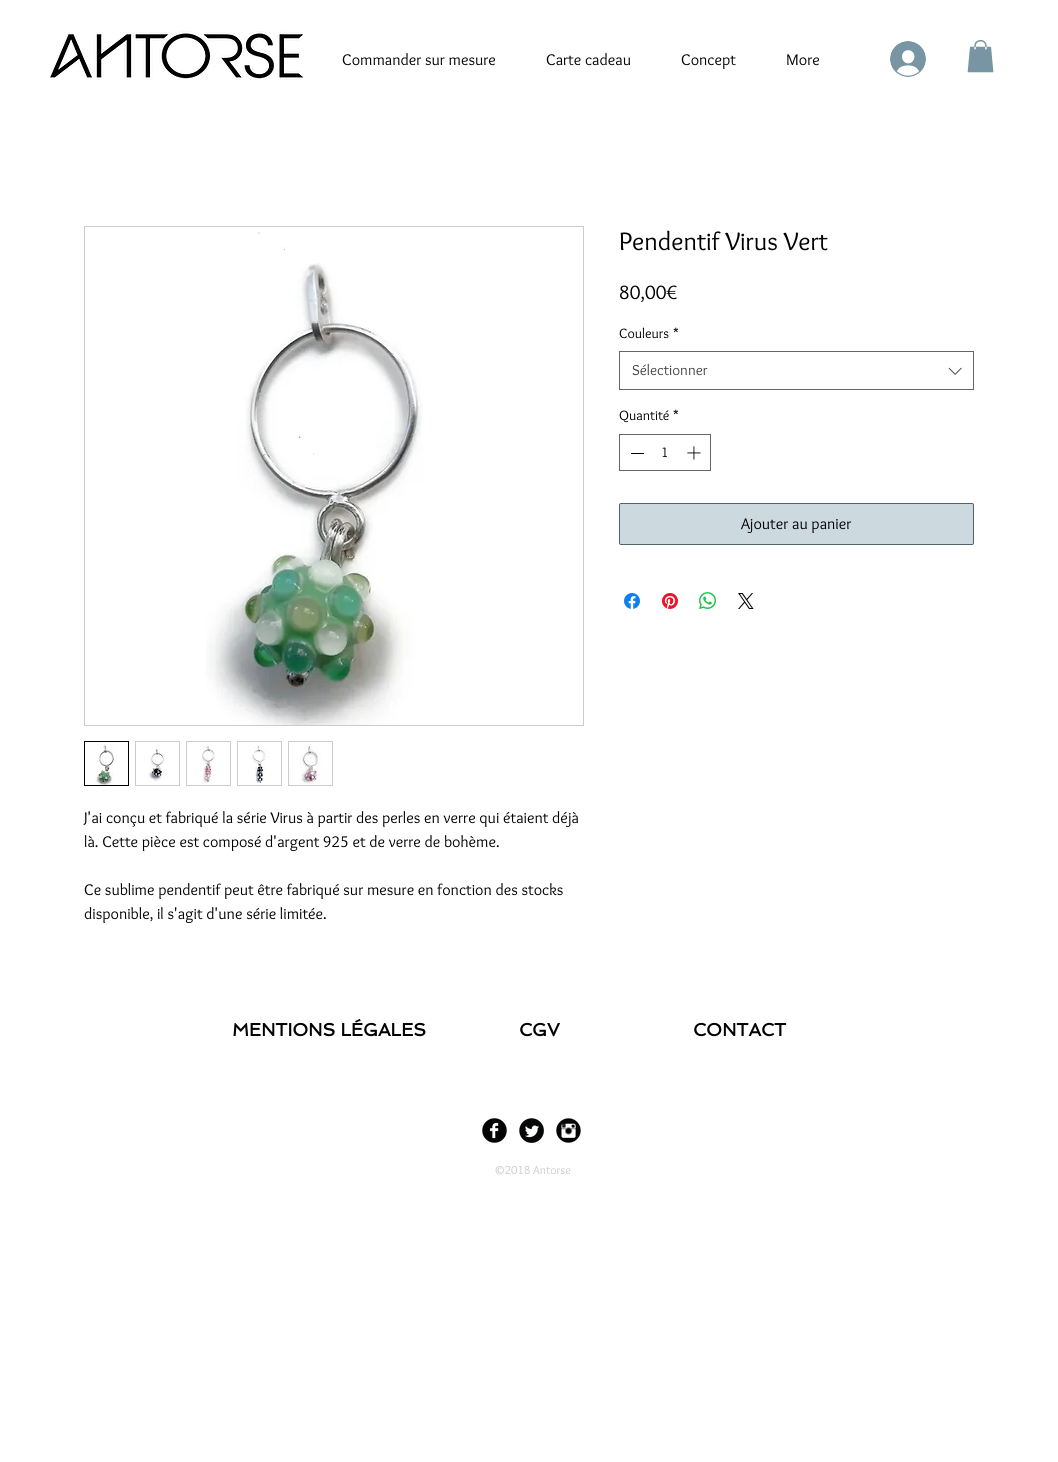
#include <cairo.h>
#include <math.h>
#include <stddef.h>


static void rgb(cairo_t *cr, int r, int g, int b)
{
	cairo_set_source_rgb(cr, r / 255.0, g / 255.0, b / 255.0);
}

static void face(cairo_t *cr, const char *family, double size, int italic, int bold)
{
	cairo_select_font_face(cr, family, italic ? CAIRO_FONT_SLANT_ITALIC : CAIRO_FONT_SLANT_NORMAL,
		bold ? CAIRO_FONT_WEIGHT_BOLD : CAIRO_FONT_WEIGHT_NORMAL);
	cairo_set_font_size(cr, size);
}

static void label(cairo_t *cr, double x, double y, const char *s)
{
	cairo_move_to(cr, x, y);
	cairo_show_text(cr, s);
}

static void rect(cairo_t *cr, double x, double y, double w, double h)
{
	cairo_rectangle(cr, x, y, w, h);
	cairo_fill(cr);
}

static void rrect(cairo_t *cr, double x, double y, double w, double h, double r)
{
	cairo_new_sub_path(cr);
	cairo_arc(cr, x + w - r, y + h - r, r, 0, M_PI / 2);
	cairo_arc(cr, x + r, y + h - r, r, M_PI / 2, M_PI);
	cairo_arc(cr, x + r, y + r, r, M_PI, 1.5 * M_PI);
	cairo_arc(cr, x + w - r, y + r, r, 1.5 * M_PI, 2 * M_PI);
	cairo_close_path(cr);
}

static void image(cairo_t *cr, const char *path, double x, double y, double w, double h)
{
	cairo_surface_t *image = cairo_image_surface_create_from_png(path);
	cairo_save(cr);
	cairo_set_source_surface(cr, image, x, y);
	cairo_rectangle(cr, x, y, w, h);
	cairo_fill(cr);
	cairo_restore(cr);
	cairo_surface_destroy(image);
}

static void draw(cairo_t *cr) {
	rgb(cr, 255, 255, 255);
	cairo_paint(cr);
	image(cr, "image0.png", 50, 31, 253, 49);
	face(cr, "Overlock", 16, 0, 0);
	rgb(cr, 0, 0, 0);
	label(cr, 342, 65, "Commander sur mesure");
	label(cr, 546, 65, "Carte cadeau");
	label(cr, 681, 65, "Concept");
	label(cr, 786, 65, "More");
	image(cr, "image1.png", 890, 41, 36, 36);
	image(cr, "image2.png", 967, 40, 27, 33);
	face(cr, "Overlock", 26, 0, 0);
	label(cr, 619, 250, "Pendentif Virus Vert");
	face(cr, "Overlock", 20, 0, 0);
	label(cr, 619, 299, "80,00€");
	face(cr, "Overlock", 14, 0, 0);
	label(cr, 619, 338, "Couleurs");
	label(cr, 673, 338, "*");
	cairo_rectangle(cr, 619.5, 351.5, 354, 38);
	rgb(cr, 102, 102, 102);
	cairo_set_line_width(cr, 1);
	cairo_stroke(cr);
	face(cr, "Overlock", 15, 0, 0);
	rgb(cr, 68, 68, 68);
	label(cr, 632, 375, "Sélectionner");
	image(cr, "image3.png", 948, 367, 14, 8);
	face(cr, "Overlock", 14, 0, 0);
	rgb(cr, 0, 0, 0);
	label(cr, 619, 420, "Quantité");
	label(cr, 673, 420, "*");
	cairo_rectangle(cr, 619.5, 434.5, 91, 36);
	rgb(cr, 102, 102, 102);
	cairo_stroke(cr);
	rgb(cr, 0, 0, 0);
	rect(cr, 631, 453, 13, 1);
	label(cr, 661, 457, "1");
	image(cr, "image4.png", 687, 446, 14, 14);
	rgb(cr, 204, 218, 224);
	rrect(cr, 619.5, 503.5, 354, 41, 1.5);
	cairo_fill_preserve(cr);
	rgb(cr, 79, 99, 109);
	cairo_stroke(cr);
	face(cr, "Overlock", 16, 0, 0);
	rgb(cr, 0, 0, 0);
	label(cr, 741, 529, "Ajouter au panier");
	image(cr, "image5.png", 624, 593, 16, 16);
	image(cr, "image6.png", 662, 593, 16, 16);
	image(cr, "image7.png", 699, 592, 17, 17);
	image(cr, "image8.png", 738, 593, 16, 16);
	cairo_rectangle(cr, 84.5, 226.5, 499, 499);
	rgb(cr, 204, 204, 204);
	cairo_stroke(cr);
	image(cr, "image9.png", 206, 232, 217, 493);
	cairo_rectangle(cr, 84.5, 741.5, 44, 44);
	rgb(cr, 0, 0, 0);
	cairo_stroke(cr);
	image(cr, "image10.png", 85, 742, 43, 43);
	rgb(cr, 204, 204, 204);
	rect(cr, 135, 741, 45, 45);
	image(cr, "image11.png", 136, 742, 43, 43);
	rect(cr, 186, 741, 45, 45);
	image(cr, "image12.png", 187, 742, 43, 43);
	rect(cr, 237, 741, 45, 45);
	image(cr, "image13.png", 238, 742, 43, 43);
	rect(cr, 288, 741, 45, 45);
	image(cr, "image14.png", 289, 742, 43, 43);
	rgb(cr, 0, 0, 0);
	label(cr, 84, 823, "J'ai conçu et fabriqué la série Virus à partir des perles en verre qui étaient déjà");
	label(cr, 84, 847, "là. Cette pièce est composé d'argent 925 et de verre de bohème.");
	label(cr, 84, 895, "Ce sublime pendentif peut être fabriqué sur mesure en fonction des stocks");
	label(cr, 84, 919, "disponible, il s'agit d'une série limitée.");
	face(cr, "Spinnaker", 18, 0, 1);
	label(cr, 232, 1036, "MENTIONS LÉGALES");
	label(cr, 519, 1036, "CGV");
	label(cr, 693, 1036, "CONTACT");
	image(cr, "image15.png", 482, 1118, 25, 25);
	image(cr, "image16.png", 519, 1118, 25, 25);
	image(cr, "image17.png", 556, 1118, 25, 25);
	face(cr, "Overlock", 12, 0, 0);
	rgb(cr, 204, 204, 204);
	label(cr, 494, 1174, "©2018 Antorse");
}

int main(void) {
	cairo_surface_t *surface = cairo_image_surface_create(CAIRO_FORMAT_RGB24, 1058, 1462);
	cairo_t *cr = cairo_create(surface);
	cairo_font_options_t *options = cairo_font_options_create();
	cairo_font_options_set_hint_metrics(options, CAIRO_HINT_METRICS_OFF);
	cairo_font_options_set_hint_style(options, CAIRO_HINT_STYLE_NONE);
	cairo_set_font_options(cr, options);
	cairo_set_miter_limit(cr, 4);
	draw(cr);
	cairo_surface_write_to_png(surface, "render.png");
	cairo_font_options_destroy(options);
	cairo_destroy(cr);
	cairo_surface_destroy(surface);
	return 0;
}
